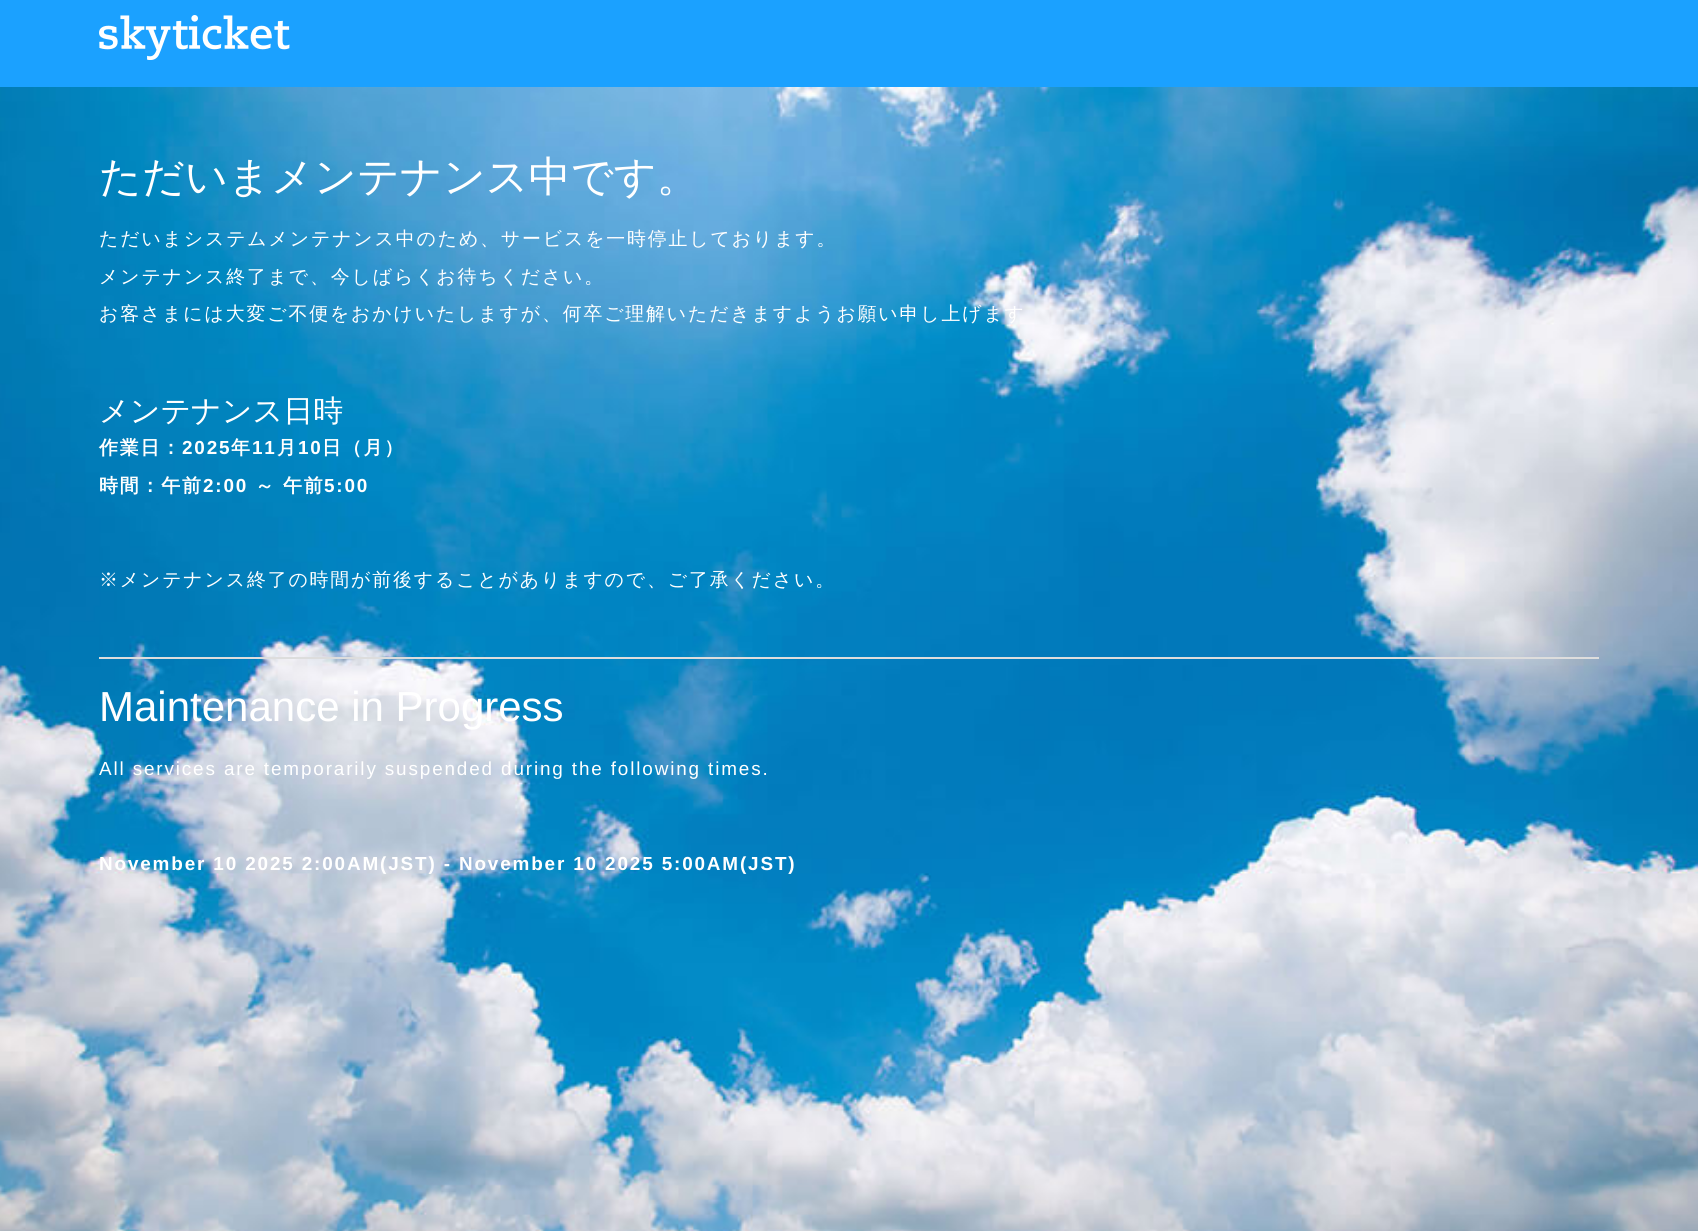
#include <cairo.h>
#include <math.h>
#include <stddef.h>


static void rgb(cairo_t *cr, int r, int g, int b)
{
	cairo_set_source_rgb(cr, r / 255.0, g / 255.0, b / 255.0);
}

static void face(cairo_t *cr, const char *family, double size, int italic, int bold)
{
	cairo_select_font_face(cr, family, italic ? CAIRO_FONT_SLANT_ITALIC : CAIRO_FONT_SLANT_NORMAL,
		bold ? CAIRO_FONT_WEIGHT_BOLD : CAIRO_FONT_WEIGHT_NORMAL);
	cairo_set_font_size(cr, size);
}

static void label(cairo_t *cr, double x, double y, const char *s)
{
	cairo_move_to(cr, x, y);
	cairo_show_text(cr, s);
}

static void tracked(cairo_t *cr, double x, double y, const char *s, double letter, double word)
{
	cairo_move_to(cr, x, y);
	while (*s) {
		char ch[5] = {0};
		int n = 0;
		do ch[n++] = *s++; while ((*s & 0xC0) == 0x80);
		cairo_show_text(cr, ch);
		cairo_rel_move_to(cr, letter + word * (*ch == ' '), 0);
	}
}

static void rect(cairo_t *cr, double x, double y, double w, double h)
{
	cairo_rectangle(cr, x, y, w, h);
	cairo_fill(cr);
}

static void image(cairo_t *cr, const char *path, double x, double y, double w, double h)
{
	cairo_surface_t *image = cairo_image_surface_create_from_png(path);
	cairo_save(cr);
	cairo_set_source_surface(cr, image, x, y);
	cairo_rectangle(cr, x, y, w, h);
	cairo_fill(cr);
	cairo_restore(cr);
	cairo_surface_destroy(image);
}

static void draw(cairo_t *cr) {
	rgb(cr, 27, 161, 255);
	cairo_paint(cr);
	image(cr, "image0.png", 99, 15, 191, 45);
	image(cr, "image1.png", 0, 87, 1698, 1144);
	face(cr, "WenQuanYi Zen Hei Medium", 42, 0, 0);
	rgb(cr, 255, 255, 255);
	label(cr, 99, 191, "ただいまメンテナンス中です。");
	face(cr, "WenQuanYi Zen Hei Medium", 18.9, 0, 0);
	tracked(cr, 99, 245, "ただいまシステムメンテナンス中のため、サービスを一時停止しております。", 1.85, 0);
	tracked(cr, 99, 283, "メンテナンス終了まで、今しばらくお待ちください。", 1.85, 0);
	tracked(cr, 99, 320, "お客さまには大変ご不便をおかけいたしますが、何卒ご理解いただきますようお願い申し上げます", 1.85, 0);
	face(cr, "WenQuanYi Zen Hei Medium", 30, 0, 0);
	label(cr, 99, 421, "メンテナンス日時");
	face(cr, "WenQuanYi Zen Hei", 18.9, 0, 1);
	tracked(cr, 99, 454, "作業日：", 1.85, 0);
	face(cr, "Liberation Sans", 18.9, 0, 1);
	tracked(cr, 182, 454, "2025", 1.85, 0);
	face(cr, "WenQuanYi Zen Hei", 18.9, 0, 1);
	tracked(cr, 231, 454, "年", 1.85, 0);
	face(cr, "Liberation Sans", 18.9, 0, 1);
	tracked(cr, 252, 454, "11", 1.85, 0);
	face(cr, "WenQuanYi Zen Hei", 18.9, 0, 1);
	tracked(cr, 277, 454, "月", 1.85, 0);
	face(cr, "Liberation Sans", 18.9, 0, 1);
	tracked(cr, 298, 454, "10", 1.85, 0);
	face(cr, "WenQuanYi Zen Hei", 18.9, 0, 1);
	tracked(cr, 322, 454, "日（月）", 1.85, 0);
	tracked(cr, 99, 492, "時間：午前", 1.85, 0);
	face(cr, "Liberation Sans", 18.9, 0, 1);
	tracked(cr, 203, 492, "2:00", 1.85, 0);
	face(cr, "WenQuanYi Zen Hei", 18.9, 0, 1);
	tracked(cr, 255, 492, "～", 1.85, 0);
	tracked(cr, 283, 492, "午前", 1.85, 0);
	face(cr, "Liberation Sans", 18.9, 0, 1);
	tracked(cr, 324, 492, "5:00", 1.85, 0);
	face(cr, "WenQuanYi Zen Hei Medium", 18.9, 0, 0);
	tracked(cr, 99, 586, "※メンテナンス終了の時間が前後することがありますので、ご了承ください。", 1.85, 0);
	rgb(cr, 221, 221, 221);
	rect(cr, 99, 657, 1500, 2);
	face(cr, "Liberation Sans", 42, 0, 0);
	rgb(cr, 255, 255, 255);
	label(cr, 99, 721, "Maintenance in Progress");
	face(cr, "Liberation Sans", 18.9, 0, 0);
	tracked(cr, 99, 775, "All services are temporarily suspended during the following times.", 1.85, 0);
	face(cr, "Liberation Sans", 18.9, 0, 1);
	tracked(cr, 99, 870, "November 10 2025 2:00AM(JST) - November 10 2025 5:00AM(JST)", 1.85, 0);
}

int main(void) {
	cairo_surface_t *surface = cairo_image_surface_create(CAIRO_FORMAT_RGB24, 1698, 1231);
	cairo_t *cr = cairo_create(surface);
	cairo_font_options_t *options = cairo_font_options_create();
	cairo_font_options_set_hint_metrics(options, CAIRO_HINT_METRICS_OFF);
	cairo_font_options_set_hint_style(options, CAIRO_HINT_STYLE_NONE);
	cairo_set_font_options(cr, options);
	cairo_set_miter_limit(cr, 4);
	draw(cr);
	cairo_surface_write_to_png(surface, "render.png");
	cairo_font_options_destroy(options);
	cairo_destroy(cr);
	cairo_surface_destroy(surface);
	return 0;
}
